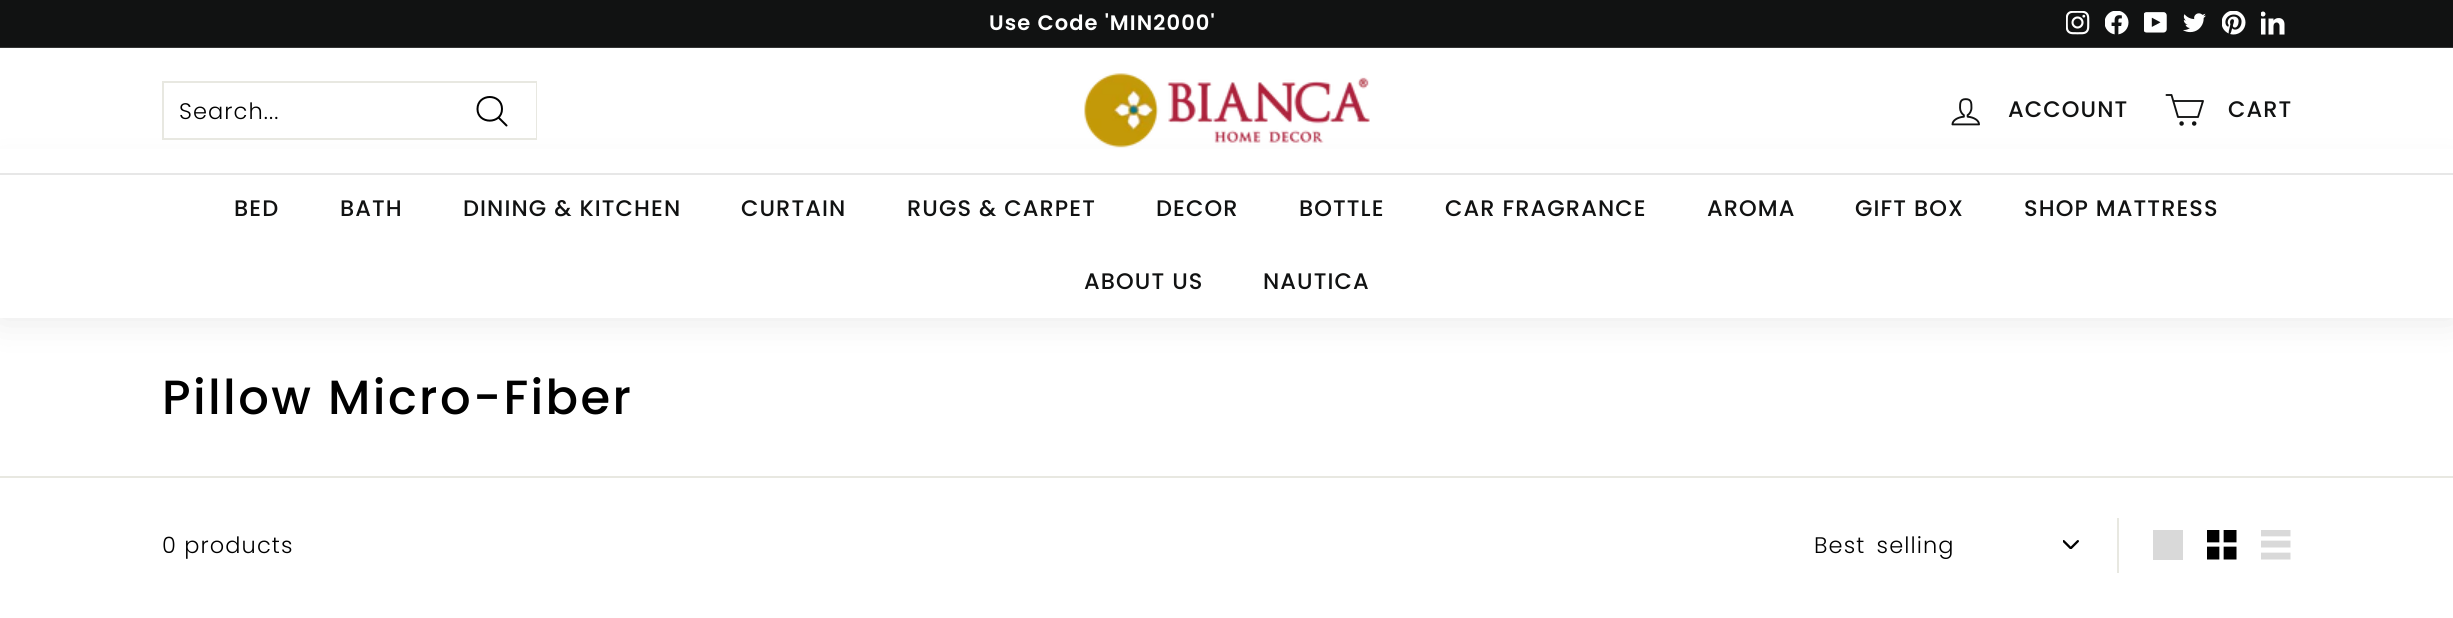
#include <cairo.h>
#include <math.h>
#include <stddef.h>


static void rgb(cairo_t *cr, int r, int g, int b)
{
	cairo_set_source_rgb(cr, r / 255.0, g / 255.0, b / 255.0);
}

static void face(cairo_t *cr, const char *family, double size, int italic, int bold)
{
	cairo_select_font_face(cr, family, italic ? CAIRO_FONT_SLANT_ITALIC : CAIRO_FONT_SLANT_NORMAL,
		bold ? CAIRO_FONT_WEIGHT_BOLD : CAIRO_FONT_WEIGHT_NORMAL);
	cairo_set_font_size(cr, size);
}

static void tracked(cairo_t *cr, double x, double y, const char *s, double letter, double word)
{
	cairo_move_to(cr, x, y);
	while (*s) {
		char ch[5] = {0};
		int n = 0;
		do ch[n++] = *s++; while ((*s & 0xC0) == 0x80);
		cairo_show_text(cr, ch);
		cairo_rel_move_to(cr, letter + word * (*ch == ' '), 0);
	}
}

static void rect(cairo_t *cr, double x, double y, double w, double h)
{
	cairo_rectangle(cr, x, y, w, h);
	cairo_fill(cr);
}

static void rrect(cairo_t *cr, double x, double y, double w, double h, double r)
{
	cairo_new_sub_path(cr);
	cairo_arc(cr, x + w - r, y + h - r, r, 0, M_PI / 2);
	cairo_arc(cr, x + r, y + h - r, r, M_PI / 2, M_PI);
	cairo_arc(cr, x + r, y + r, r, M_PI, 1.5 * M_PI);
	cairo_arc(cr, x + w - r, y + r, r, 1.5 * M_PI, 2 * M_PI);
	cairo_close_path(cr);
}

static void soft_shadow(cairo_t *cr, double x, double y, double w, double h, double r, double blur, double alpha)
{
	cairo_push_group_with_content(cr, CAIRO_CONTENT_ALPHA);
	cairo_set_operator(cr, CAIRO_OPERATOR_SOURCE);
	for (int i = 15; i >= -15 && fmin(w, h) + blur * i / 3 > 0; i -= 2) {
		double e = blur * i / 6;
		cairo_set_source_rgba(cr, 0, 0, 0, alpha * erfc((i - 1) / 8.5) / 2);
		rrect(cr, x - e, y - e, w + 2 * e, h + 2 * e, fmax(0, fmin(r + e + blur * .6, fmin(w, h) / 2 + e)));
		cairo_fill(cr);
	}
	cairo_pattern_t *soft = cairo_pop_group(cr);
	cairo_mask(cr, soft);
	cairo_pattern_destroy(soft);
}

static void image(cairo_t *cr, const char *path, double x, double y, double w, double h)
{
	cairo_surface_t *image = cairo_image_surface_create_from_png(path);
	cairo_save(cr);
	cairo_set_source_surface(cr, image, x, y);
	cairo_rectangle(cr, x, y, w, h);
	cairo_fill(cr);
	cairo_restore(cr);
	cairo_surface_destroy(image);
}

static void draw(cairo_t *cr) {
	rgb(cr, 255, 255, 255);
	cairo_paint(cr);
	rgb(cr, 17, 18, 18);
	rect(cr, 0, 0, 2453, 48);
	face(cr, "Poppins SemiBold", 21, 0, 0);
	rgb(cr, 255, 255, 255);
	tracked(cr, 989, 30, "Use Code 'MIN2000'", 1.1, 0);
	image(cr, "image0.png", 2066, 11, 24, 24);
	image(cr, "image1.png", 2105, 11, 24, 24);
	image(cr, "image2.png", 2144, 12, 23, 21);
	image(cr, "image3.png", 2183, 13, 23, 20);
	image(cr, "image4.png", 2222, 11, 24, 24);
	image(cr, "image5.png", 2261, 11, 24, 24);
	cairo_set_source_rgba(cr, 1, 1, 1, 0.15);
	rect(cr, 0, 47, 2453, 1);
	rgb(cr, 0, 0, 0);
	soft_shadow(cr, 0, 173, 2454, 145, 0, 19, 0.1);
	rgb(cr, 255, 255, 255);
	rect(cr, 0, 149, 2453, 24);
	cairo_rectangle(cr, 163, 82, 373, 57);
	rgb(cr, 232, 232, 225);
	cairo_stroke(cr);
	rgb(cr, 255, 255, 255);
	rect(cr, 535, 83, 1, 55);
	face(cr, "Poppins Light", 22.5, 0, 0);
	rgb(cr, 0, 0, 0);
	tracked(cr, 179, 119, "Search...", 1.1, 0);
	cairo_new_path(cr);
	cairo_move_to(cr, 502, 109);
	cairo_curve_to(cr, 502, 124.5, 477.5, 124.5, 477.5, 109);
	cairo_curve_to(cr, 477.5, 93, 502, 93, 502, 109);
	cairo_close_path(cr);
	cairo_move_to(cr, 506.5, 125.5);
	cairo_line_to(cr, 498.5, 117.5);
	cairo_set_line_cap(cr, CAIRO_LINE_CAP_ROUND);
	cairo_set_line_join(cr, CAIRO_LINE_JOIN_ROUND);
	cairo_stroke(cr);
	image(cr, "image6.png", 1084, 73, 286, 75);
	image(cr, "image7.png", 1951, 98, 29, 28);
	face(cr, "Poppins Medium", 22.5, 0, 0);
	rgb(cr, 17, 18, 18);
	tracked(cr, 2008, 117, "ACCOUNT", 1.1, 0);
	cairo_new_path(cr);
	cairo_move_to(cr, 2173.5, 101);
	cairo_line_to(cr, 2203, 101);
	cairo_line_to(cr, 2198, 117);
	cairo_line_to(cr, 2178, 117);
	cairo_line_to(cr, 2171.5, 95);
	cairo_line_to(cr, 2166.5, 95);
	cairo_set_line_width(cr, 1.9);
	cairo_stroke(cr);
	cairo_arc(cr, 2181.6, 123.5, 1.3, 0, 2 * M_PI);
	cairo_fill_preserve(cr);
	cairo_set_line_cap(cr, CAIRO_LINE_CAP_BUTT);
	cairo_set_line_join(cr, CAIRO_LINE_JOIN_MITER);
	cairo_stroke(cr);
	cairo_arc(cr, 2194.2, 123.5, 1.3, 0, 2 * M_PI);
	cairo_fill_preserve(cr);
	cairo_stroke(cr);
	tracked(cr, 2228, 117, "CART", 1.1, 0);
	rgb(cr, 255, 255, 255);
	rect(cr, 0, 175, 2453, 143);
	rgb(cr, 231, 231, 231);
	rect(cr, 0, 173, 2453, 2);
	rgb(cr, 17, 18, 18);
	tracked(cr, 234, 216, "BED", 1.1, 0);
	tracked(cr, 340, 216, "BATH", 1.1, 0);
	tracked(cr, 463, 216, "DINING & KITCHEN", 1.1, 0);
	tracked(cr, 741, 216, "CURTAIN", 1.1, 0);
	tracked(cr, 907, 216, "RUGS & CARPET", 1.1, 0);
	tracked(cr, 1156, 216, "DECOR", 1.1, 0);
	tracked(cr, 1299, 216, "BOTTLE", 1.1, 0);
	tracked(cr, 1445, 216, "CAR FRAGRANCE", 1.1, 0);
	tracked(cr, 1707, 216, "AROMA", 1.1, 0);
	tracked(cr, 1855, 216, "GIFT BOX", 1.1, 0);
	tracked(cr, 2024, 216, "SHOP MATTRESS", 1.1, 0);
	tracked(cr, 1084, 289, "ABOUT US", 1.1, 0);
	tracked(cr, 1263, 289, "NAUTICA", 1.1, 0);
	face(cr, "Poppins Medium", 48, 0, 0);
	rgb(cr, 0, 0, 0);
	tracked(cr, 162, 414, "Pillow Micro-Fiber", 2.4, 0);
	rgb(cr, 232, 232, 225);
	rect(cr, 0, 476, 2453, 2);
	face(cr, "Poppins Light", 22.5, 0, 0);
	rgb(cr, 0, 0, 0);
	tracked(cr, 162, 553, "0 products", 1.1, 0);
	rgb(cr, 232, 232, 225);
	rect(cr, 2117, 518, 2, 55);
	image(cr, "image8.png", 2063, 540, 16, 9);
	rgb(cr, 0, 0, 0);
	tracked(cr, 1814, 553, "Best selling", 1.1, 4);
	rgb(cr, 217, 217, 217);
	rect(cr, 2153, 530, 30, 30);
	image(cr, "image9.png", 2207, 530, 30, 30);
	image(cr, "image10.png", 2261, 530, 30, 30);
}

int main(void) {
	cairo_surface_t *surface = cairo_image_surface_create(CAIRO_FORMAT_RGB24, 2453, 618);
	cairo_t *cr = cairo_create(surface);
	cairo_font_options_t *options = cairo_font_options_create();
	cairo_font_options_set_hint_metrics(options, CAIRO_HINT_METRICS_OFF);
	cairo_font_options_set_hint_style(options, CAIRO_HINT_STYLE_NONE);
	cairo_set_font_options(cr, options);
	cairo_set_miter_limit(cr, 4);
	draw(cr);
	cairo_surface_write_to_png(surface, "render.png");
	cairo_font_options_destroy(options);
	cairo_destroy(cr);
	cairo_surface_destroy(surface);
	return 0;
}
